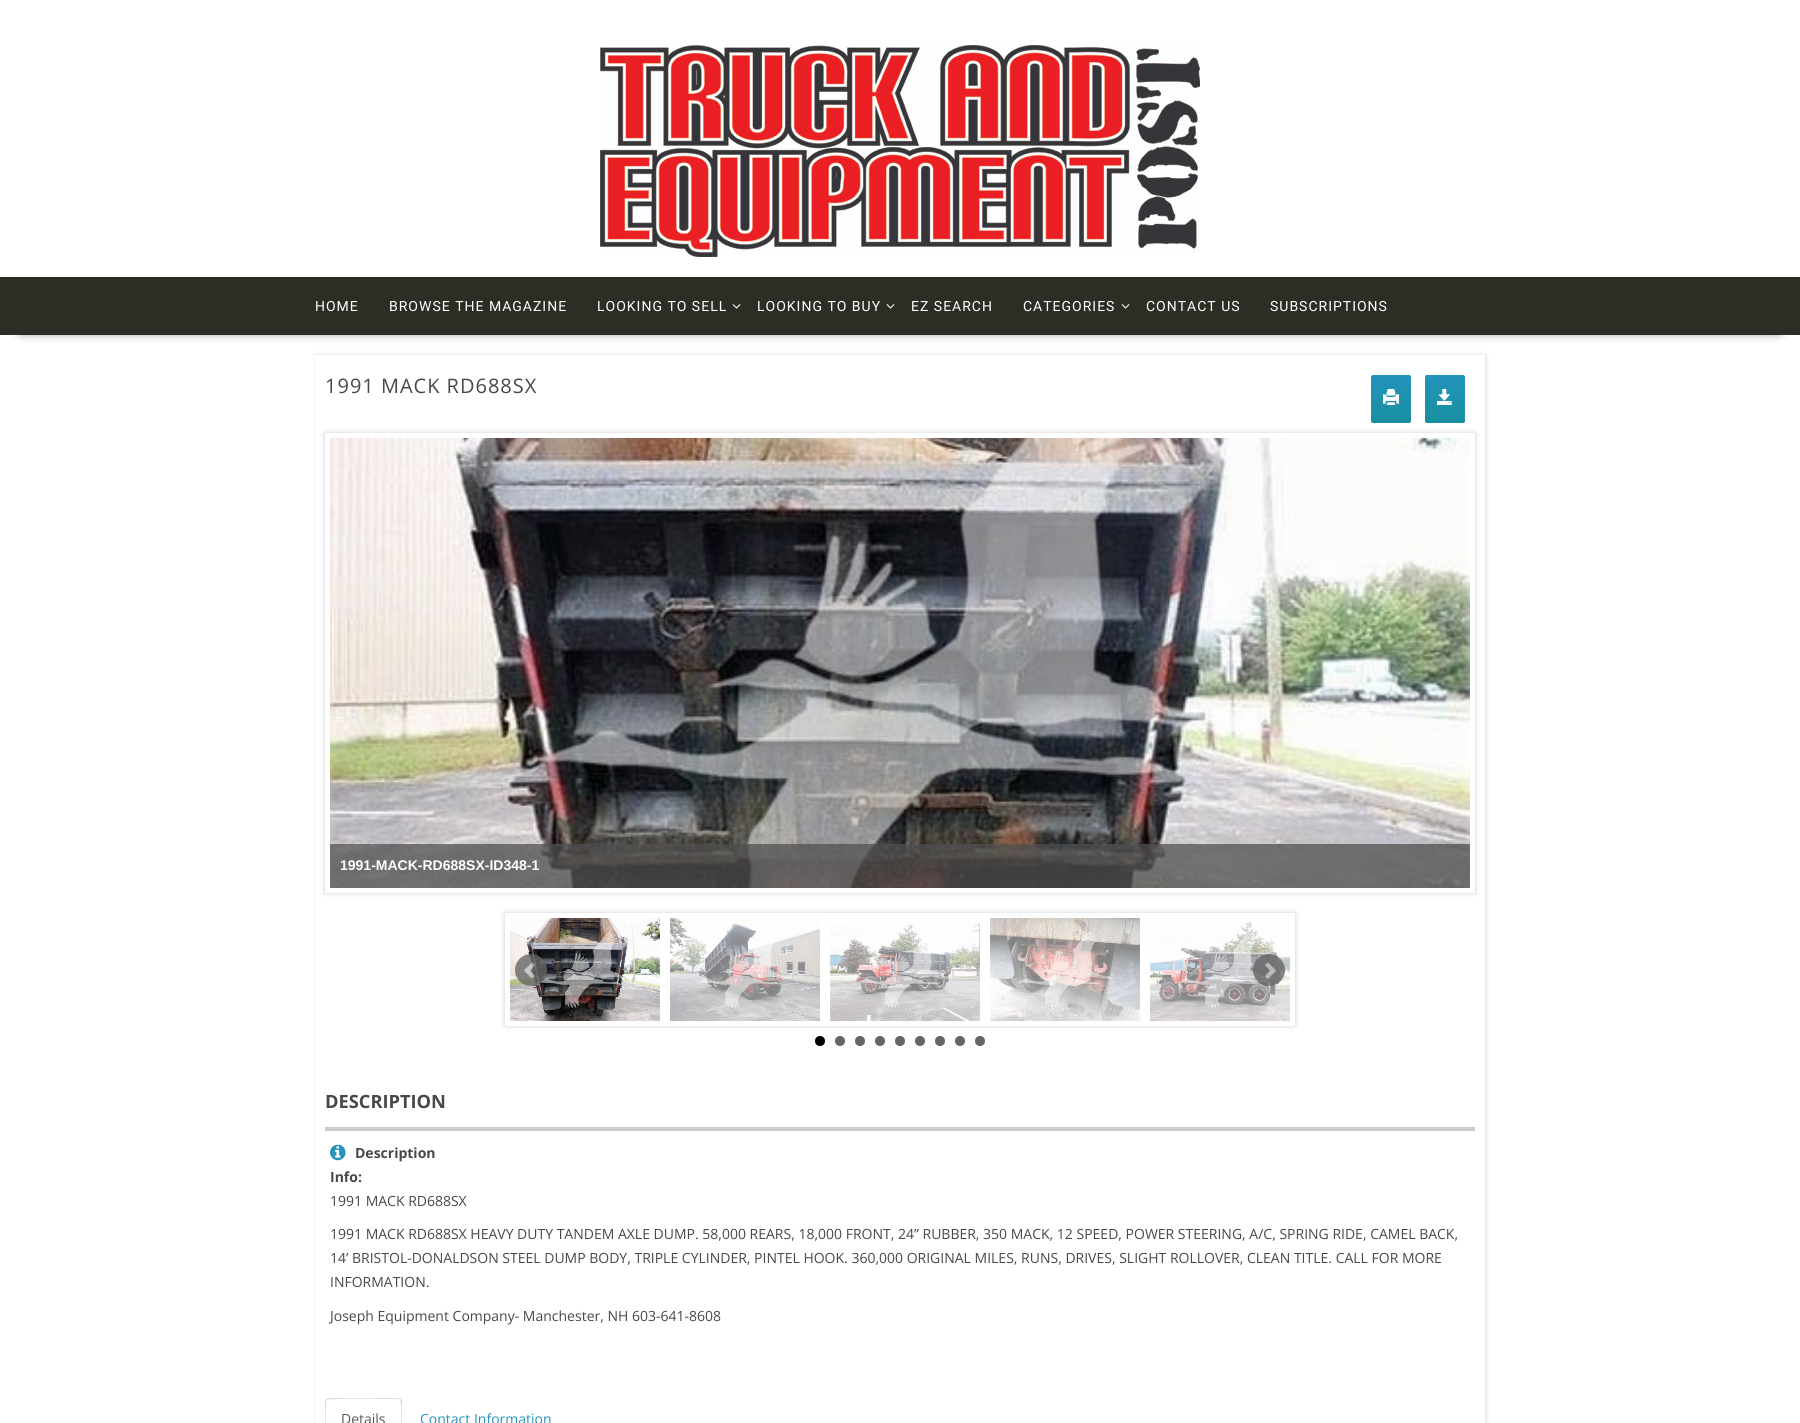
#include <cairo.h>
#include <math.h>
#include <stddef.h>


static void rgb(cairo_t *cr, int r, int g, int b)
{
	cairo_set_source_rgb(cr, r / 255.0, g / 255.0, b / 255.0);
}

static void face(cairo_t *cr, const char *family, double size, int italic, int bold)
{
	cairo_select_font_face(cr, family, italic ? CAIRO_FONT_SLANT_ITALIC : CAIRO_FONT_SLANT_NORMAL,
		bold ? CAIRO_FONT_WEIGHT_BOLD : CAIRO_FONT_WEIGHT_NORMAL);
	cairo_set_font_size(cr, size);
}

static void label(cairo_t *cr, double x, double y, const char *s)
{
	cairo_move_to(cr, x, y);
	cairo_show_text(cr, s);
}

static void tracked(cairo_t *cr, double x, double y, const char *s, double letter, double word)
{
	cairo_move_to(cr, x, y);
	while (*s) {
		char ch[5] = {0};
		int n = 0;
		do ch[n++] = *s++; while ((*s & 0xC0) == 0x80);
		cairo_show_text(cr, ch);
		cairo_rel_move_to(cr, letter + word * (*ch == ' '), 0);
	}
}

static void rect(cairo_t *cr, double x, double y, double w, double h)
{
	cairo_rectangle(cr, x, y, w, h);
	cairo_fill(cr);
}

static void rrect(cairo_t *cr, double x, double y, double w, double h, double r)
{
	cairo_new_sub_path(cr);
	cairo_arc(cr, x + w - r, y + h - r, r, 0, M_PI / 2);
	cairo_arc(cr, x + r, y + h - r, r, M_PI / 2, M_PI);
	cairo_arc(cr, x + r, y + r, r, M_PI, 1.5 * M_PI);
	cairo_arc(cr, x + w - r, y + r, r, 1.5 * M_PI, 2 * M_PI);
	cairo_close_path(cr);
}

static void soft_shadow(cairo_t *cr, double x, double y, double w, double h, double r, double blur, double alpha)
{
	cairo_push_group_with_content(cr, CAIRO_CONTENT_ALPHA);
	cairo_set_operator(cr, CAIRO_OPERATOR_SOURCE);
	for (int i = 15; i >= -15 && fmin(w, h) + blur * i / 3 > 0; i -= 2) {
		double e = blur * i / 6;
		cairo_set_source_rgba(cr, 0, 0, 0, alpha * erfc((i - 1) / 8.5) / 2);
		rrect(cr, x - e, y - e, w + 2 * e, h + 2 * e, fmax(0, fmin(r + e + blur * .6, fmin(w, h) / 2 + e)));
		cairo_fill(cr);
	}
	cairo_pattern_t *soft = cairo_pop_group(cr);
	cairo_mask(cr, soft);
	cairo_pattern_destroy(soft);
}

static void image(cairo_t *cr, const char *path, double x, double y, double w, double h)
{
	cairo_surface_t *image = cairo_image_surface_create_from_png(path);
	cairo_save(cr);
	cairo_set_source_surface(cr, image, x, y);
	cairo_rectangle(cr, x, y, w, h);
	cairo_fill(cr);
	cairo_restore(cr);
	cairo_surface_destroy(image);
}

static void draw(cairo_t *cr) {
	cairo_pattern_t *gradient;
	rgb(cr, 255, 255, 255);
	cairo_paint(cr);
	image(cr, "image0.png", 600, 45, 600, 212);
	rgb(cr, 0, 0, 0);
	soft_shadow(cr, 21, 315, 1758, 16, 0, 5.5, 0.75);
	rgb(cr, 46, 45, 37);
	rect(cr, 0, 277, 1800, 58);
	face(cr, "Roboto", 14, 0, 0);
	rgb(cr, 255, 255, 255);
	tracked(cr, 315, 311, "HOME", 1, 0);
	tracked(cr, 389, 311, "BROWSE THE MAGAZINE", 1, 0);
	tracked(cr, 597, 311, "LOOKING TO SELL", 1, 0);
	image(cr, "image1.png", 732, 304, 9, 5);
	tracked(cr, 757, 311, "LOOKING TO BUY", 1, 0);
	image(cr, "image1.png", 886, 304, 9, 5);
	tracked(cr, 911, 311, "EZ SEARCH", 1, 0);
	tracked(cr, 1023, 311, "CATEGORIES", 1, 0);
	image(cr, "image1.png", 1121, 304, 9, 5);
	tracked(cr, 1146, 311, "CONTACT US", 1, 0);
	tracked(cr, 1270, 311, "SUBSCRIPTIONS", 1, 0);
	cairo_save(cr);
	cairo_set_fill_rule(cr, CAIRO_FILL_RULE_EVEN_ODD);
	cairo_new_path(cr);
	cairo_move_to(cr, 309, 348);
	cairo_line_to(cr, 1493, 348);
	cairo_line_to(cr, 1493, 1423);
	cairo_line_to(cr, 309, 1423);
	cairo_close_path(cr);
	cairo_move_to(cr, 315, 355);
	cairo_line_to(cr, 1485, 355);
	cairo_line_to(cr, 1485, 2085);
	cairo_line_to(cr, 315, 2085);
	cairo_close_path(cr);
	cairo_clip(cr);
	rgb(cr, 0, 0, 0);
	soft_shadow(cr, 316, 355, 1170, 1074, 0, 2, 0.15);
	cairo_restore(cr);
	face(cr, "Open Sans", 20, 0, 0);
	rgb(cr, 72, 72, 72);
	tracked(cr, 325, 393, "1991 MACK RD688SX", 1, 0);
	gradient = cairo_pattern_create_linear(1391, 375, 1391, 423);
	cairo_pattern_add_color_stop_rgba(gradient, 0, 0.137, 0.576, 0.729, 1);
	cairo_pattern_add_color_stop_rgba(gradient, 1, 0.098, 0.565, 0.631, 1);
	cairo_set_source(cr, gradient);
	cairo_pattern_destroy(gradient);
	rrect(cr, 1371, 375, 40, 48, 2);
	cairo_fill(cr);
	image(cr, "image2.png", 1383, 389, 16, 16);
	gradient = cairo_pattern_create_linear(1445, 375, 1445, 423);
	cairo_pattern_add_color_stop_rgba(gradient, 0, 0.137, 0.576, 0.729, 1);
	cairo_pattern_add_color_stop_rgba(gradient, 1, 0.098, 0.565, 0.631, 1);
	cairo_set_source(cr, gradient);
	cairo_pattern_destroy(gradient);
	rrect(cr, 1425, 375, 40, 48, 2);
	cairo_fill(cr);
	image(cr, "image3.png", 1437, 389, 15, 16);
	cairo_save(cr);
	cairo_set_fill_rule(cr, CAIRO_FILL_RULE_EVEN_ODD);
	cairo_new_path(cr);
	cairo_move_to(cr, 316, 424);
	cairo_line_to(cr, 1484, 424);
	cairo_line_to(cr, 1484, 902);
	cairo_line_to(cr, 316, 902);
	cairo_close_path(cr);
	cairo_move_to(cr, 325, 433);
	cairo_line_to(cr, 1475, 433);
	cairo_line_to(cr, 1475, 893);
	cairo_line_to(cr, 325, 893);
	cairo_close_path(cr);
	cairo_clip(cr);
	rgb(cr, 204, 204, 204);
	soft_shadow(cr, 325, 433, 1150, 460, 0, 2.5, 1);
	cairo_restore(cr);
	image(cr, "image4.png", 330, 438, 1140, 450);
	cairo_set_source_rgba(cr, 0.314, 0.314, 0.314, 0.75);
	rect(cr, 330, 844, 1140, 44);
	face(cr, "Liberation Sans", 14, 0, 1);
	rgb(cr, 255, 255, 255);
	label(cr, 340, 870, "1991-MACK-RD688SX-ID348-1");
	cairo_save(cr);
	cairo_set_fill_rule(cr, CAIRO_FILL_RULE_EVEN_ODD);
	cairo_new_path(cr);
	cairo_move_to(cr, 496, 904);
	cairo_line_to(cr, 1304, 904);
	cairo_line_to(cr, 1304, 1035);
	cairo_line_to(cr, 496, 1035);
	cairo_close_path(cr);
	cairo_move_to(cr, 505, 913);
	cairo_line_to(cr, 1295, 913);
	cairo_line_to(cr, 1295, 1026);
	cairo_line_to(cr, 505, 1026);
	cairo_close_path(cr);
	cairo_clip(cr);
	rgb(cr, 204, 204, 204);
	soft_shadow(cr, 505, 913, 790, 113, 0, 2.5, 1);
	cairo_restore(cr);
	image(cr, "image5.png", 510, 918, 150, 103);
	image(cr, "image6.png", 670, 918, 150, 103);
	image(cr, "image7.png", 830, 922, 150, 99);
	image(cr, "image8.png", 990, 918, 150, 103);
	image(cr, "image9.png", 1150, 921, 140, 100);
	image(cr, "image10.png", 515, 954, 32, 32);
	image(cr, "image11.png", 1253, 954, 32, 32);
	rgb(cr, 0, 0, 0);
	cairo_arc(cr, 820, 1041, 5, 0, 2 * M_PI);
	cairo_fill(cr);
	rgb(cr, 102, 102, 102);
	cairo_arc(cr, 840, 1041, 5, 0, 2 * M_PI);
	cairo_fill(cr);
	cairo_arc(cr, 860, 1041, 5, 0, 2 * M_PI);
	cairo_fill(cr);
	cairo_arc(cr, 880, 1041, 5, 0, 2 * M_PI);
	cairo_fill(cr);
	cairo_arc(cr, 900, 1041, 5, 0, 2 * M_PI);
	cairo_fill(cr);
	cairo_arc(cr, 920, 1041, 5, 0, 2 * M_PI);
	cairo_fill(cr);
	cairo_arc(cr, 940, 1041, 5, 0, 2 * M_PI);
	cairo_fill(cr);
	cairo_arc(cr, 960, 1041, 5, 0, 2 * M_PI);
	cairo_fill(cr);
	cairo_arc(cr, 980, 1041, 5, 0, 2 * M_PI);
	cairo_fill(cr);
	rgb(cr, 204, 204, 204);
	rect(cr, 325, 1127, 1150, 4);
	face(cr, "Open Sans", 18.25, 0, 1);
	rgb(cr, 72, 72, 72);
	label(cr, 325, 1108, "DESCRIPTION");
	image(cr, "image12.png", 330, 1144, 16, 17);
	face(cr, "Open Sans", 14, 0, 1);
	label(cr, 355, 1158, "Description");
	label(cr, 330, 1182, "Info:");
	face(cr, "Open Sans", 14, 0, 0);
	label(cr, 330, 1206, "1991 MACK RD688SX");
	label(cr, 330, 1239, "1991 MACK RD688SX HEAVY DUTY TANDEM AXLE DUMP. 58,000 REARS, 18,000 FRONT, 24” RUBBER, 350 MACK, 12 SPEED, POWER STEERING, A/C, SPRING RIDE, CAMEL BACK,");
	label(cr, 330, 1263, "14’ BRISTOL-DONALDSON STEEL DUMP BODY, TRIPLE CYLINDER, PINTEL HOOK. 360,000 ORIGINAL MILES, RUNS, DRIVES, SLIGHT ROLLOVER, CLEAN TITLE. CALL FOR MORE");
	label(cr, 330, 1287, "INFORMATION.");
	label(cr, 330, 1321, "Joseph Equipment Company- Manchester, NH 603-641-8608");
	rgb(cr, 221, 221, 221);
	cairo_new_path(cr);
	cairo_move_to(cr, 329, 1398);
	cairo_line_to(cr, 326, 1399);
	cairo_line_to(cr, 327, 1400);
	cairo_curve_to(cr, 329, 1398, 380, 1399, 386, 1399);
	cairo_line_to(cr, 398, 1399);
	cairo_line_to(cr, 400, 1400);
	cairo_line_to(cr, 401, 1399);
	cairo_line_to(cr, 398, 1398);
	cairo_close_path(cr);
	cairo_fill(cr);
	cairo_new_path(cr);
	cairo_move_to(cr, 402, 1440);
	cairo_line_to(cr, 402, 1402);
	cairo_curve_to(cr, 402, 1401, 402, 1400, 401, 1399);
	cairo_line_to(cr, 400, 1400);
	cairo_curve_to(cr, 402, 1402, 401, 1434, 401, 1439);
	cairo_close_path(cr);
	cairo_fill(cr);
	cairo_new_path(cr);
	cairo_move_to(cr, 325, 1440);
	cairo_line_to(cr, 326, 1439);
	cairo_curve_to(cr, 326, 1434, 325, 1402, 327, 1400);
	cairo_line_to(cr, 326, 1399);
	cairo_line_to(cr, 325, 1402);
	cairo_close_path(cr);
	cairo_fill(cr);
	rgb(cr, 85, 85, 85);
	label(cr, 341, 1424, "Details");
	rgb(cr, 35, 147, 186);
	label(cr, 420, 1424, "Contact Information");
}

int main(void) {
	cairo_surface_t *surface = cairo_image_surface_create(CAIRO_FORMAT_RGB24, 1800, 1423);
	cairo_t *cr = cairo_create(surface);
	cairo_font_options_t *options = cairo_font_options_create();
	cairo_font_options_set_hint_metrics(options, CAIRO_HINT_METRICS_OFF);
	cairo_font_options_set_hint_style(options, CAIRO_HINT_STYLE_NONE);
	cairo_set_font_options(cr, options);
	cairo_set_miter_limit(cr, 4);
	draw(cr);
	cairo_surface_write_to_png(surface, "render.png");
	cairo_font_options_destroy(options);
	cairo_destroy(cr);
	cairo_surface_destroy(surface);
	return 0;
}
